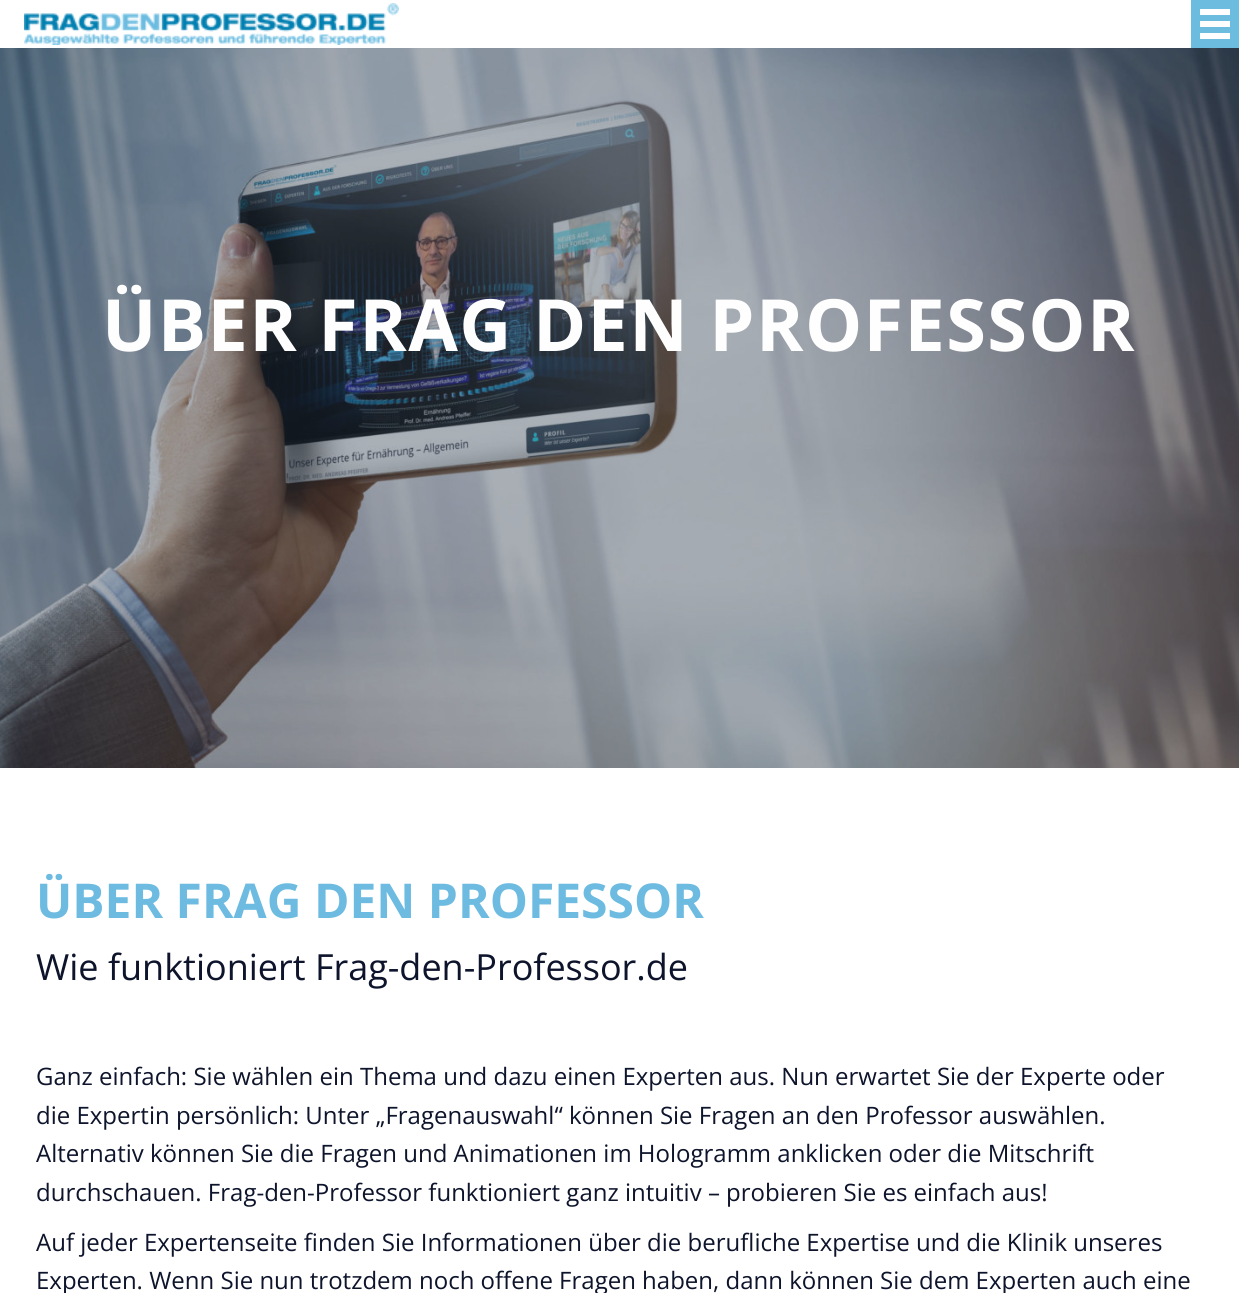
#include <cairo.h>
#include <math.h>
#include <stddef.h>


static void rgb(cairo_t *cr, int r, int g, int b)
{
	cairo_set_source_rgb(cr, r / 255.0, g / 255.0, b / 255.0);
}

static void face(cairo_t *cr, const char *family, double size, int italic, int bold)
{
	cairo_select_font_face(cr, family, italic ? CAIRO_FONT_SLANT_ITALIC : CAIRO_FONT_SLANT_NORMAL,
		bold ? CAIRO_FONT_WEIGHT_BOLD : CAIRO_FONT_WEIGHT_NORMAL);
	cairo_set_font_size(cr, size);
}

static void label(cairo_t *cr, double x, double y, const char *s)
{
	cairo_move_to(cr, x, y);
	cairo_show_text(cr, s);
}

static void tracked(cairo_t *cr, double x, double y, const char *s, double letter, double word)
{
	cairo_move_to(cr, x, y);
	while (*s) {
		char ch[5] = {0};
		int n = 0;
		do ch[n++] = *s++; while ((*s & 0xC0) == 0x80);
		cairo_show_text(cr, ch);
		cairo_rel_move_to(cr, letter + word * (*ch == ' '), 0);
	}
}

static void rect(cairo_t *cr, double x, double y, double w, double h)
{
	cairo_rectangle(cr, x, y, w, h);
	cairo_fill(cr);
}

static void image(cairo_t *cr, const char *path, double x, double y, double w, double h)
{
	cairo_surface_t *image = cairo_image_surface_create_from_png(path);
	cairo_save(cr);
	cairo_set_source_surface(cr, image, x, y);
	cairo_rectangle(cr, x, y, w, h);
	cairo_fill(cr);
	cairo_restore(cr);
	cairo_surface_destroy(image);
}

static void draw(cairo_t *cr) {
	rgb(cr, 255, 255, 255);
	cairo_paint(cr);
	image(cr, "image0.png", 24, 3, 375, 42);
	rgb(cr, 108, 188, 224);
	rect(cr, 1191, 0, 48, 48);
	rgb(cr, 254, 254, 254);
	rect(cr, 1200, 9, 30, 6);
	rect(cr, 1200, 21, 30, 6);
	rect(cr, 1200, 33, 30, 6);
	image(cr, "image1.png", 0, 48, 1239, 720);
	face(cr, "Open Sans", 72, 0, 1);
	tracked(cr, 102, 351, "ÜBER FRAG DEN PROFESSOR", 1.4, 0);
	face(cr, "Open Sans", 48, 0, 1);
	rgb(cr, 109, 187, 225);
	label(cr, 36, 918, "ÜBER FRAG DEN PROFESSOR");
	face(cr, "Open Sans", 36, 0, 0);
	rgb(cr, 13, 20, 43);
	label(cr, 36, 980, "Wie funktioniert Frag-den-Professor.de");
	face(cr, "Open Sans", 24, 0, 0);
	label(cr, 36, 1085, "Ganz einfach: Sie wählen ein Thema und dazu einen Experten aus. Nun erwartet Sie der Experte oder");
	label(cr, 36, 1124, "die Expertin persönlich: Unter „Fragenauswahl“ können Sie Fragen an den Professor auswählen.");
	label(cr, 36, 1162, "Alternativ können Sie die Fragen und Animationen im Hologramm anklicken oder die Mitschrift");
	label(cr, 36, 1201, "durchschauen. Frag-den-Professor funktioniert ganz intuitiv – probieren Sie es einfach aus!");
	label(cr, 36, 1251, "Auf jeder Expertenseite finden Sie Informationen über die berufliche Expertise und die Klinik unseres");
	label(cr, 36, 1289, "Experten. Wenn Sie nun trotzdem noch offene Fragen haben, dann können Sie dem Experten auch eine");
}

int main(void) {
	cairo_surface_t *surface = cairo_image_surface_create(CAIRO_FORMAT_RGB24, 1239, 1293);
	cairo_t *cr = cairo_create(surface);
	cairo_font_options_t *options = cairo_font_options_create();
	cairo_font_options_set_hint_metrics(options, CAIRO_HINT_METRICS_OFF);
	cairo_font_options_set_hint_style(options, CAIRO_HINT_STYLE_NONE);
	cairo_set_font_options(cr, options);
	cairo_set_miter_limit(cr, 4);
	draw(cr);
	cairo_surface_write_to_png(surface, "render.png");
	cairo_font_options_destroy(options);
	cairo_destroy(cr);
	cairo_surface_destroy(surface);
	return 0;
}
